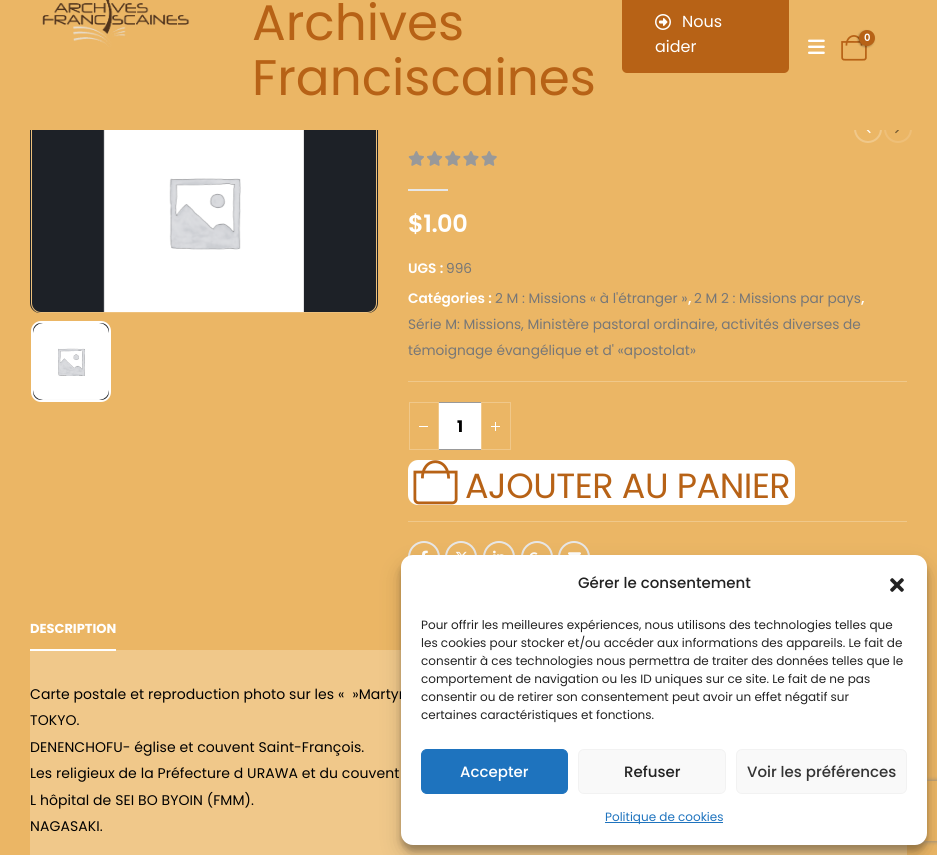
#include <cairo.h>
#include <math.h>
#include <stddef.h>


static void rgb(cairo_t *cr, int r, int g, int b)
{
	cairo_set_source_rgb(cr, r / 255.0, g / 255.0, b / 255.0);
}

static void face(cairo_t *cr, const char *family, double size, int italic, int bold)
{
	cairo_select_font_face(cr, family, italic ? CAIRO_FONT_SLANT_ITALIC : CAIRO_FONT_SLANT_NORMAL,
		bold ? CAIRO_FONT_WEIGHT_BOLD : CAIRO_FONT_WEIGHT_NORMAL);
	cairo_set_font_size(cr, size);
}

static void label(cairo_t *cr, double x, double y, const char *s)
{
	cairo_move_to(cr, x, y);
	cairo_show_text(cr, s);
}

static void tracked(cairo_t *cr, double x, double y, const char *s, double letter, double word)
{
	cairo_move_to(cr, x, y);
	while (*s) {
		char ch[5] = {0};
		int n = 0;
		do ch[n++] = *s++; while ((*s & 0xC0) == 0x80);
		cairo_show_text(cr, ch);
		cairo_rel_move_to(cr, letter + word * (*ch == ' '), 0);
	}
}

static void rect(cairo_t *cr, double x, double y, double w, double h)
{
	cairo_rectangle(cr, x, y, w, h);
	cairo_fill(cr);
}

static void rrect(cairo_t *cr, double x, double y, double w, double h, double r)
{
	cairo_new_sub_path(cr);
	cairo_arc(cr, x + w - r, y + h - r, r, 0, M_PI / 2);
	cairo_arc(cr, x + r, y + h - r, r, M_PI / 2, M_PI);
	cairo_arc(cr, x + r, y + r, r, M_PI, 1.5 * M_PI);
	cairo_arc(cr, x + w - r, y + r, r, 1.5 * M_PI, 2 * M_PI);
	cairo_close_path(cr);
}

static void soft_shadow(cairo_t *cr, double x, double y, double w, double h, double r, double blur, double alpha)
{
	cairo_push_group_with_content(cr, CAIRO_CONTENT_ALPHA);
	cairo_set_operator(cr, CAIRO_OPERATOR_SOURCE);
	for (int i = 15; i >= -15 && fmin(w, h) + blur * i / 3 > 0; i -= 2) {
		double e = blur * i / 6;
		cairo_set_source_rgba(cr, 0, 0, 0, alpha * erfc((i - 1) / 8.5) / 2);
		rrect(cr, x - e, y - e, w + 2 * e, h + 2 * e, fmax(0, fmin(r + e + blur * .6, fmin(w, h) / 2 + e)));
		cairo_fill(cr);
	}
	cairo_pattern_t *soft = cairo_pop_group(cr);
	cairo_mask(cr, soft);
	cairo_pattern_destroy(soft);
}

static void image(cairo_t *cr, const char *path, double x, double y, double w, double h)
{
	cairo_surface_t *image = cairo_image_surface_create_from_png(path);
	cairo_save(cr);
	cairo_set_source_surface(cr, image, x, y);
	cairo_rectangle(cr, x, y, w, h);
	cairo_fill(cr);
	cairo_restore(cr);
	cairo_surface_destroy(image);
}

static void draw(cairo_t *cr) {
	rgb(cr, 235, 182, 101);
	cairo_paint(cr);
	rgb(cr, 29, 33, 39);
	rrect(cr, 30, 111, 348, 202, 10);
	cairo_fill(cr);
	rrect(cr, 31.5, 111.5, 345, 201, 9.5);
	rgb(cr, 238, 193, 124);
	cairo_set_line_width(cr, 1);
	cairo_stroke(cr);
	cairo_arc(cr, 868, 129, 13, 0, 2 * M_PI);
	rgb(cr, 240, 200, 138);
	cairo_set_line_width(cr, 2);
	cairo_stroke(cr);
	cairo_arc(cr, 898, 129, 13, 0, 2 * M_PI);
	rgb(cr, 238, 191, 120);
	cairo_stroke(cr);
	rgb(cr, 235, 182, 101);
	rect(cr, 30, 111, 882, 19);
	image(cr, "image0.png", 42, 0, 148, 47);
	face(cr, "Poppins", 50, 0, 0);
	rgb(cr, 183, 98, 22);
	label(cr, 252, 40, "Archives");
	label(cr, 252, 95, "Franciscaines");
	rrect(cr, 622, -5, 167, 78, 5);
	cairo_fill(cr);
	image(cr, "image1.png", 655, 14, 16, 16);
	face(cr, "Poppins", 16, 0, 0);
	rgb(cr, 255, 255, 255);
	label(cr, 682, 27, "Nous");
	label(cr, 655, 52, "aider");
	image(cr, "image2.png", 841, 35, 26, 26);
	rgb(cr, 0, 0, 0);
	soft_shadow(cr, 858, 31, 16, 16, 8, 1, 0.3);
	rgb(cr, 183, 98, 22);
	cairo_arc(cr, 867, 38, 8, 0, 2 * M_PI);
	cairo_fill(cr);
	face(cr, "Poppins SemiBold", 10, 0, 0);
	rgb(cr, 255, 255, 255);
	label(cr, 864, 41, "0");
	image(cr, "image3.png", 808, 39, 17, 15);
	image(cr, "image4.png", 103, 130, 201, 182);
	rgb(cr, 29, 33, 39);
	rrect(cr, 32, 322, 78, 79, 9);
	cairo_fill_preserve(cr);
	rgb(cr, 255, 255, 255);
	cairo_stroke(cr);
	image(cr, "image5.png", 33, 323, 76, 77);
	image(cr, "image6.png", 866, 130, 5, 4);
	image(cr, "image7.png", 895, 130, 4, 4);
	image(cr, "image8.png", 408, 151, 89, 15);
	rgb(cr, 231, 231, 231);
	rect(cr, 408, 189, 40, 2);
	face(cr, "Poppins SemiBold", 24, 0, 0);
	rgb(cr, 255, 255, 255);
	tracked(cr, 408, 232, "$1.00", -0.5, 0);
	face(cr, "Poppins SemiBold", 13.7, 0, 0);
	label(cr, 408, 273, "UGS :");
	face(cr, "Poppins", 13.7, 0, 0);
	rgb(cr, 119, 119, 119);
	label(cr, 446, 273, "996");
	face(cr, "Poppins SemiBold", 13.7, 0, 0);
	rgb(cr, 255, 255, 255);
	label(cr, 408, 303, "Catégories :");
	face(cr, "Poppins", 13.7, 0, 0);
	rgb(cr, 119, 119, 119);
	label(cr, 495, 303, "2 M : Missions « à l'étranger »");
	face(cr, "Poppins SemiBold", 13.7, 0, 0);
	rgb(cr, 255, 255, 255);
	label(cr, 688, 303, ",");
	face(cr, "Poppins", 13.7, 0, 0);
	rgb(cr, 119, 119, 119);
	label(cr, 694, 303, "2 M 2 : Missions par pays");
	face(cr, "Poppins SemiBold", 13.7, 0, 0);
	rgb(cr, 255, 255, 255);
	label(cr, 861, 303, ",");
	face(cr, "Poppins", 13.7, 0, 0);
	rgb(cr, 119, 119, 119);
	label(cr, 408, 329, "Série M: Missions, Ministère pastoral ordinaire, activités diverses de");
	label(cr, 408, 355, "témoignage évangélique et d' «apostolat»");
	rgb(cr, 240, 200, 138);
	rect(cr, 408, 381, 499, 1);
	rect(cr, 408, 521, 499, 1);
	rgb(cr, 153, 153, 153);
	rect(cr, 438, 402, 44, 1);
	rect(cr, 438, 449, 44, 1);
	cairo_rectangle(cr, 409.5, 402.5, 29, 47);
	rgb(cr, 240, 200, 138);
	cairo_set_line_width(cr, 1);
	cairo_stroke(cr);
	rgb(cr, 255, 255, 255);
	rect(cr, 419, 426, 9, 1);
	rect(cr, 439, 403, 42, 46);
	face(cr, "Poppins", 16, 0, 1);
	rgb(cr, 0, 0, 0);
	label(cr, 457, 432, "1");
	cairo_rectangle(cr, 481.5, 402.5, 29, 47);
	rgb(cr, 240, 200, 138);
	cairo_stroke(cr);
	rgb(cr, 255, 255, 255);
	rect(cr, 491, 426, 9, 1);
	rect(cr, 495, 422, 1, 9);
	rrect(cr, 408, 460, 387, 45, 10);
	cairo_fill(cr);
	image(cr, "image9.png", 413, 460, 45, 45);
	face(cr, "Poppins", 35, 0, 0);
	rgb(cr, 183, 98, 22);
	tracked(cr, 465, 498, "AJOUTER AU PANIER", -0.5, 0);
	cairo_new_path(cr);
	cairo_arc(cr, 424, 557, 15, 0, 2 * M_PI);
	rgb(cr, 231, 231, 231);
	cairo_set_line_width(cr, 2);
	cairo_stroke(cr);
	image(cr, "image10.png", 422, 550, 6, 5);
	cairo_arc(cr, 461, 557, 15, 0, 2 * M_PI);
	cairo_stroke(cr);
	image(cr, "image11.png", 455, 551, 12, 4);
	cairo_arc(cr, 499, 557, 15, 0, 2 * M_PI);
	cairo_stroke(cr);
	image(cr, "image12.png", 493, 550, 11, 5);
	cairo_arc(cr, 537, 557, 15, 0, 2 * M_PI);
	cairo_stroke(cr);
	image(cr, "image13.png", 529, 552, 9, 3);
	cairo_arc(cr, 574, 557, 15, 0, 2 * M_PI);
	cairo_stroke(cr);
	image(cr, "image14.png", 568, 552, 13, 3);
	rgb(cr, 240, 200, 138);
	rect(cr, 30, 650, 877, 205);
	rgb(cr, 255, 255, 255);
	rect(cr, 30, 649, 86, 2);
	face(cr, "Poppins", 13, 0, 1);
	label(cr, 30, 633, "DESCRIPTION");
	face(cr, "Poppins", 14, 0, 0);
	rgb(cr, 0, 0, 0);
	tracked(cr, 30, 699, "Carte postale et reproduction photo sur les «  »Martyr", 0.07, 0);
	tracked(cr, 30, 725, "TOKYO.", 0.07, 0);
	tracked(cr, 30, 752, "DENENCHOFU- église et couvent Saint-François.", 0.07, 0);
	tracked(cr, 30, 778, "Les religieux de la Préfecture d URAWA et du couvent", 0.07, 0);
	tracked(cr, 30, 805, "L hôpital de SEI BO BYOIN (FMM).", 0.07, 0);
	tracked(cr, 30, 831, "NAGASAKI.", 0.07, 0);
	rgb(cr, 0, 0, 0);
	soft_shadow(cr, 401, 561, 526, 290, 12, 3, 0.23);
	soft_shadow(cr, 401, 565, 526, 290, 12, 10, 0.19);
	cairo_save(cr);
	cairo_set_fill_rule(cr, CAIRO_FILL_RULE_EVEN_ODD);
	cairo_new_path(cr);
	cairo_move_to(cr, 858, 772);
	cairo_line_to(cr, 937, 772);
	cairo_line_to(cr, 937, 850);
	cairo_line_to(cr, 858, 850);
	cairo_close_path(cr);
	cairo_move_to(cr, 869, 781);
	cairo_line_to(cr, 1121, 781);
	cairo_curve_to(cr, 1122, 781, 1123, 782, 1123, 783);
	cairo_line_to(cr, 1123, 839);
	cairo_curve_to(cr, 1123, 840, 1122, 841, 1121, 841);
	cairo_line_to(cr, 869, 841);
	cairo_curve_to(cr, 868, 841, 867, 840, 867, 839);
	cairo_line_to(cr, 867, 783);
	cairo_curve_to(cr, 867, 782, 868, 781, 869, 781);
	cairo_close_path(cr);
	cairo_clip(cr);
	rgb(cr, 128, 128, 128);
	soft_shadow(cr, 867, 781, 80, 60, 2, 2.5, 1);
	cairo_restore(cr);
	rgb(cr, 255, 255, 255);
	rrect(cr, 401, 555, 526, 290, 12);
	cairo_fill(cr);
	face(cr, "Poppins Medium", 15, 0, 0);
	rgb(cr, 34, 34, 34);
	label(cr, 578, 588, "Gérer le consentement");
	image(cr, "image15.png", 890, 578, 14, 14);
	face(cr, "Poppins", 12, 0, 0);
	label(cr, 421, 629, "Pour offrir les meilleures expériences, nous utilisons des technologies telles que");
	label(cr, 421, 647, "les cookies pour stocker et/ou accéder aux informations des appareils. Le fait de");
	label(cr, 421, 665, "consentir à ces technologies nous permettra de traiter des données telles que le");
	label(cr, 421, 683, "comportement de navigation ou les ID uniques sur ce site. Le fait de ne pas");
	label(cr, 421, 701, "consentir ou de retirer son consentement peut avoir un effet négatif sur");
	label(cr, 421, 719, "certaines caractéristiques et fonctions.");
	rgb(cr, 30, 115, 190);
	rrect(cr, 421.5, 749.5, 146, 44, 5.5);
	cairo_fill_preserve(cr);
	cairo_set_line_width(cr, 1);
	cairo_stroke(cr);
	face(cr, "Poppins Medium", 15, 0, 0);
	rgb(cr, 255, 255, 255);
	label(cr, 460, 777, "Accepter");
	rgb(cr, 249, 249, 249);
	rrect(cr, 578.5, 749.5, 147, 44, 5.5);
	cairo_fill_preserve(cr);
	rgb(cr, 242, 242, 242);
	cairo_stroke(cr);
	rgb(cr, 34, 34, 34);
	label(cr, 624, 777, "Refuser");
	rgb(cr, 249, 249, 249);
	rrect(cr, 736.5, 749.5, 170, 44, 5.5);
	cairo_fill_preserve(cr);
	rgb(cr, 242, 242, 242);
	cairo_stroke(cr);
	rgb(cr, 51, 51, 51);
	label(cr, 747, 777, "Voir les préférences");
	rgb(cr, 30, 115, 190);
	rect(cr, 605, 822, 118, 1);
	face(cr, "Poppins", 12, 0, 0);
	label(cr, 605, 821, "Politique de cookies");
}

int main(void) {
	cairo_surface_t *surface = cairo_image_surface_create(CAIRO_FORMAT_RGB24, 937, 855);
	cairo_t *cr = cairo_create(surface);
	cairo_font_options_t *options = cairo_font_options_create();
	cairo_font_options_set_hint_metrics(options, CAIRO_HINT_METRICS_OFF);
	cairo_font_options_set_hint_style(options, CAIRO_HINT_STYLE_NONE);
	cairo_set_font_options(cr, options);
	cairo_set_miter_limit(cr, 4);
	draw(cr);
	cairo_surface_write_to_png(surface, "render.png");
	cairo_font_options_destroy(options);
	cairo_destroy(cr);
	cairo_surface_destroy(surface);
	return 0;
}
